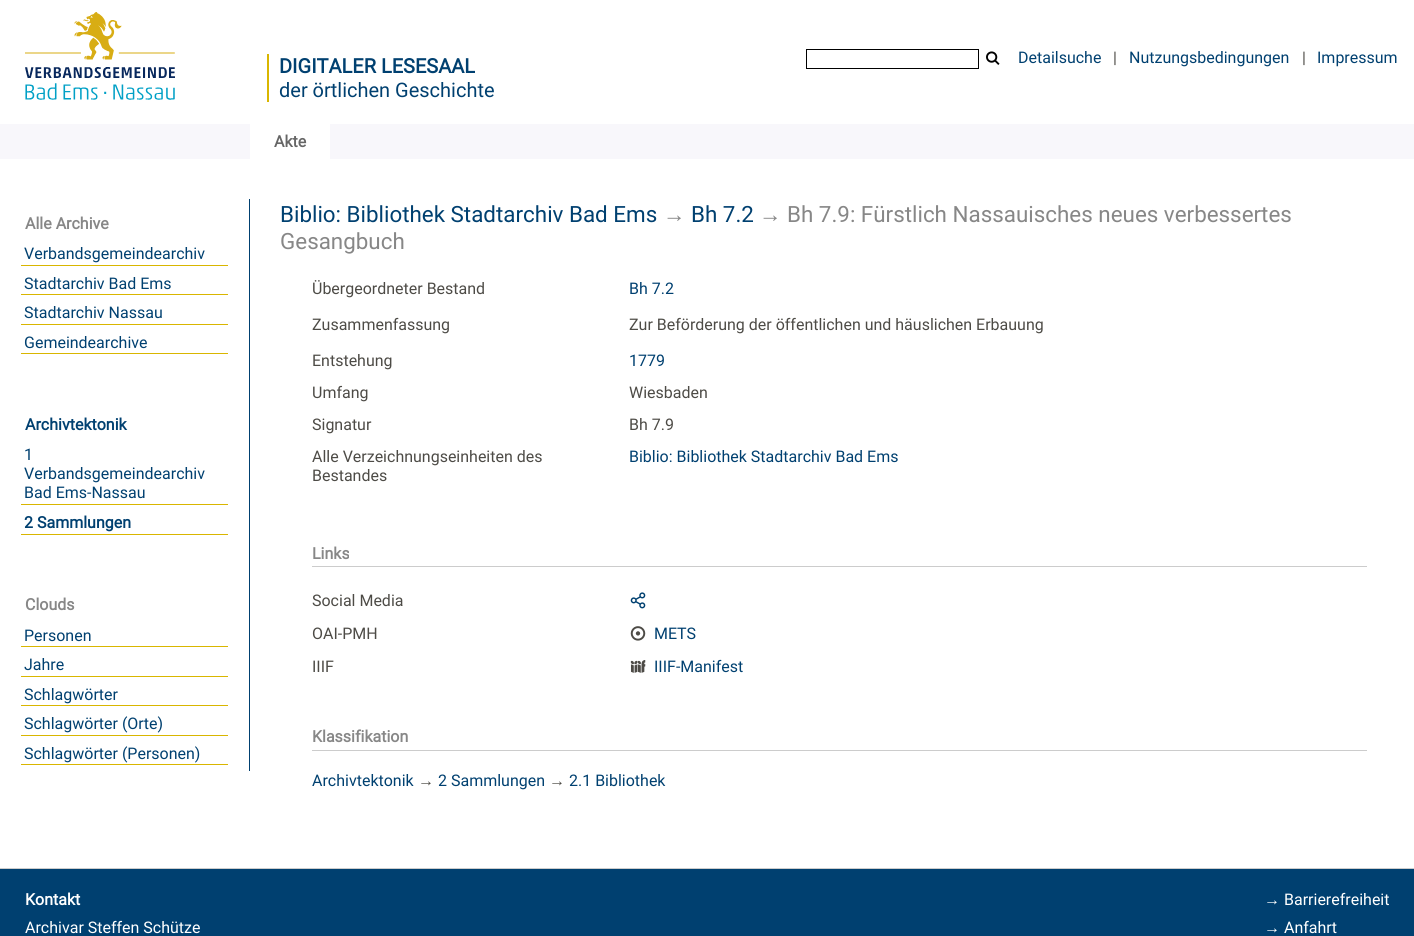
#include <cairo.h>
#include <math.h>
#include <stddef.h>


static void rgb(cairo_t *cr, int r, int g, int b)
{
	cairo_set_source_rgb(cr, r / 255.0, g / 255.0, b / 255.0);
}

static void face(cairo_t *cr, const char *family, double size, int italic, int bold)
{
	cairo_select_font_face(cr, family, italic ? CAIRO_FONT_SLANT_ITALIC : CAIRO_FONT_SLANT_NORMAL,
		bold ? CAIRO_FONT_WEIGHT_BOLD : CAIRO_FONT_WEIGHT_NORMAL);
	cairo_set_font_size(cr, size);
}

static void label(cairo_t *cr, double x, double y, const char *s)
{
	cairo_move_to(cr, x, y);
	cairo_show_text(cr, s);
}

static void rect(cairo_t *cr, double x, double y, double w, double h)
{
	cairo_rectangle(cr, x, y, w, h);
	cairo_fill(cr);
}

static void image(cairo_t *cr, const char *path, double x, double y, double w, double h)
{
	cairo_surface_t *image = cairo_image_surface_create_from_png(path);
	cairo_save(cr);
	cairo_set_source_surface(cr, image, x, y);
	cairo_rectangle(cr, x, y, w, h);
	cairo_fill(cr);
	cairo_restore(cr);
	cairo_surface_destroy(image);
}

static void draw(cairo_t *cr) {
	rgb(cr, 255, 255, 255);
	cairo_paint(cr);
	image(cr, "image0.png", 25, 12, 150, 88);
	rgb(cr, 217, 182, 0);
	rect(cr, 267, 54, 2, 48);
	face(cr, "Roboto", 20, 0, 1);
	rgb(cr, 0, 64, 112);
	label(cr, 279, 73, "DIGITALER LESESAAL");
	face(cr, "Roboto", 20, 0, 0);
	label(cr, 279, 97, "der örtlichen Geschichte");
	cairo_rectangle(cr, 806.5, 49.5, 172, 19);
	rgb(cr, 0, 0, 0);
	cairo_set_line_width(cr, 1);
	cairo_stroke(cr);
	image(cr, "image1.png", 986, 51, 14, 14);
	face(cr, "Roboto", 16, 0, 0);
	rgb(cr, 0, 64, 112);
	label(cr, 1018, 63, "Detailsuche");
	rgb(cr, 77, 75, 70);
	label(cr, 1113, 63, "|");
	rgb(cr, 0, 64, 112);
	label(cr, 1129, 63, "Nutzungsbedingungen");
	rgb(cr, 77, 75, 70);
	label(cr, 1302, 63, "|");
	rgb(cr, 0, 64, 112);
	label(cr, 1317, 63, "Impressum");
	rgb(cr, 248, 247, 251);
	rect(cr, 0, 124, 1414, 35);
	rgb(cr, 255, 255, 255);
	rect(cr, 250, 124, 80, 35);
	face(cr, "Roboto", 16, 0, 1);
	rgb(cr, 102, 102, 102);
	label(cr, 274, 147, "Akte");
	rgb(cr, 0, 64, 112);
	rect(cr, 249, 199, 1, 572);
	rgb(cr, 135, 135, 135);
	label(cr, 25, 229, "Alle Archive");
	rgb(cr, 217, 182, 0);
	rect(cr, 21, 265, 207, 1);
	face(cr, "Roboto", 16, 0, 0);
	rgb(cr, 0, 64, 112);
	label(cr, 24, 259, "Verbandsgemeindearchiv");
	rgb(cr, 217, 182, 0);
	rect(cr, 21, 294, 207, 1);
	rgb(cr, 0, 64, 112);
	label(cr, 24, 289, "Stadtarchiv Bad Ems");
	rgb(cr, 217, 182, 0);
	rect(cr, 21, 324, 207, 1);
	rgb(cr, 0, 64, 112);
	label(cr, 24, 318, "Stadtarchiv Nassau");
	rgb(cr, 217, 182, 0);
	rect(cr, 21, 353, 207, 1);
	rgb(cr, 0, 64, 112);
	label(cr, 24, 348, "Gemeindearchive");
	face(cr, "Roboto", 16, 0, 1);
	label(cr, 25, 430, "Archivtektonik");
	rgb(cr, 217, 182, 0);
	rect(cr, 21, 504, 207, 1);
	face(cr, "Roboto", 16, 0, 0);
	rgb(cr, 0, 64, 112);
	label(cr, 24, 460, "1");
	label(cr, 24, 479, "Verbandsgemeindearchiv");
	label(cr, 24, 498, "Bad Ems-Nassau");
	rgb(cr, 217, 182, 0);
	rect(cr, 21, 534, 207, 1);
	face(cr, "Roboto", 16, 0, 1);
	rgb(cr, 0, 64, 112);
	label(cr, 24, 528, "2 Sammlungen");
	rgb(cr, 135, 135, 135);
	label(cr, 25, 610, "Clouds");
	rgb(cr, 217, 182, 0);
	rect(cr, 21, 646, 207, 1);
	face(cr, "Roboto", 16, 0, 0);
	rgb(cr, 0, 64, 112);
	label(cr, 24, 641, "Personen");
	rgb(cr, 217, 182, 0);
	rect(cr, 21, 676, 207, 1);
	rgb(cr, 0, 64, 112);
	label(cr, 24, 670, "Jahre");
	rgb(cr, 217, 182, 0);
	rect(cr, 21, 705, 207, 1);
	rgb(cr, 0, 64, 112);
	label(cr, 24, 700, "Schlagwörter");
	rgb(cr, 217, 182, 0);
	rect(cr, 21, 735, 207, 1);
	rgb(cr, 0, 64, 112);
	label(cr, 24, 729, "Schlagwörter (Orte)");
	rgb(cr, 217, 182, 0);
	rect(cr, 21, 764, 207, 1);
	rgb(cr, 0, 64, 112);
	label(cr, 24, 759, "Schlagwörter (Personen)");
	face(cr, "Roboto", 22.4, 0, 0);
	label(cr, 280, 222, "Biblio: Bibliothek Stadtarchiv Bad Ems");
	face(cr, "Liberation Serif", 22.4, 0, 0);
	rgb(cr, 135, 135, 135);
	label(cr, 663, 222, "→");
	face(cr, "Roboto", 22.4, 0, 0);
	rgb(cr, 0, 64, 112);
	label(cr, 691, 222, "Bh 7.2");
	face(cr, "Liberation Serif", 22.4, 0, 0);
	rgb(cr, 135, 135, 135);
	label(cr, 759, 222, "→");
	face(cr, "Roboto", 22.4, 0, 0);
	label(cr, 787, 222, "Bh 7.9: Fürstlich Nassauisches neues verbessertes");
	label(cr, 280, 249, "Gesangbuch");
	face(cr, "Roboto", 16, 0, 0);
	rgb(cr, 77, 75, 70);
	label(cr, 312, 294, "Übergeordneter Bestand");
	rgb(cr, 0, 64, 112);
	label(cr, 629, 294, "Bh 7.2");
	rgb(cr, 77, 75, 70);
	label(cr, 312, 330, "Zusammenfassung");
	label(cr, 629, 330, "Zur Beförderung der öffentlichen und häuslichen Erbauung");
	label(cr, 312, 366, "Entstehung");
	rgb(cr, 0, 64, 112);
	label(cr, 629, 366, "1779");
	rgb(cr, 77, 75, 70);
	label(cr, 312, 398, "Umfang");
	label(cr, 629, 398, "Wiesbaden");
	label(cr, 312, 430, "Signatur");
	label(cr, 629, 430, "Bh 7.9");
	label(cr, 312, 462, "Alle Verzeichnungseinheiten des");
	label(cr, 312, 481, "Bestandes");
	rgb(cr, 0, 64, 112);
	label(cr, 629, 462, "Biblio: Bibliothek Stadtarchiv Bad Ems");
	rgb(cr, 204, 204, 204);
	rect(cr, 312, 566, 1055, 1);
	face(cr, "Roboto", 16, 0, 1);
	rgb(cr, 135, 135, 135);
	label(cr, 312, 559, "Links");
	face(cr, "Roboto", 16, 0, 0);
	rgb(cr, 77, 75, 70);
	label(cr, 312, 606, "Social Media");
	image(cr, "image2.png", 630, 592, 16, 17);
	label(cr, 312, 639, "OAI-PMH");
	image(cr, "image3.png", 630, 626, 16, 15);
	rgb(cr, 0, 64, 112);
	label(cr, 654, 639, "METS");
	rgb(cr, 77, 75, 70);
	label(cr, 312, 672, "IIIF");
	image(cr, "image4.png", 630, 660, 16, 13);
	rgb(cr, 0, 64, 112);
	label(cr, 654, 672, "IIIF-Manifest");
	rgb(cr, 204, 204, 204);
	rect(cr, 312, 750, 1055, 1);
	face(cr, "Roboto", 16, 0, 1);
	rgb(cr, 135, 135, 135);
	label(cr, 312, 742, "Klassifikation");
	face(cr, "Roboto", 16, 0, 0);
	rgb(cr, 0, 64, 112);
	label(cr, 312, 786, "Archivtektonik");
	face(cr, "Liberation Serif", 16, 0, 0);
	rgb(cr, 77, 75, 70);
	label(cr, 418, 786, "→");
	face(cr, "Roboto", 16, 0, 0);
	rgb(cr, 0, 64, 112);
	label(cr, 438, 786, "2 Sammlungen");
	face(cr, "Liberation Serif", 16, 0, 0);
	rgb(cr, 77, 75, 70);
	label(cr, 549, 786, "→");
	face(cr, "Roboto", 16, 0, 0);
	rgb(cr, 0, 64, 112);
	label(cr, 569, 786, "2.1 Bibliothek");
	rect(cr, 0, 869, 1414, 67);
	rgb(cr, 204, 204, 204);
	rect(cr, 0, 868, 1414, 1);
	face(cr, "Roboto", 16, 0, 1);
	rgb(cr, 255, 255, 255);
	label(cr, 25, 905, "Kontakt");
	face(cr, "Roboto", 16, 0, 0);
	label(cr, 25, 933, "Archivar Steffen Schütze");
	face(cr, "Liberation Serif", 16, 0, 0);
	label(cr, 1264, 905, "→");
	face(cr, "Roboto", 16, 0, 0);
	label(cr, 1284, 905, "Barrierefreiheit");
	face(cr, "Liberation Serif", 16, 0, 0);
	label(cr, 1264, 933, "→");
	face(cr, "Roboto", 16, 0, 0);
	label(cr, 1284, 933, "Anfahrt");
}

int main(void) {
	cairo_surface_t *surface = cairo_image_surface_create(CAIRO_FORMAT_RGB24, 1414, 936);
	cairo_t *cr = cairo_create(surface);
	cairo_font_options_t *options = cairo_font_options_create();
	cairo_font_options_set_hint_metrics(options, CAIRO_HINT_METRICS_OFF);
	cairo_font_options_set_hint_style(options, CAIRO_HINT_STYLE_NONE);
	cairo_set_font_options(cr, options);
	cairo_set_miter_limit(cr, 4);
	draw(cr);
	cairo_surface_write_to_png(surface, "render.png");
	cairo_font_options_destroy(options);
	cairo_destroy(cr);
	cairo_surface_destroy(surface);
	return 0;
}
